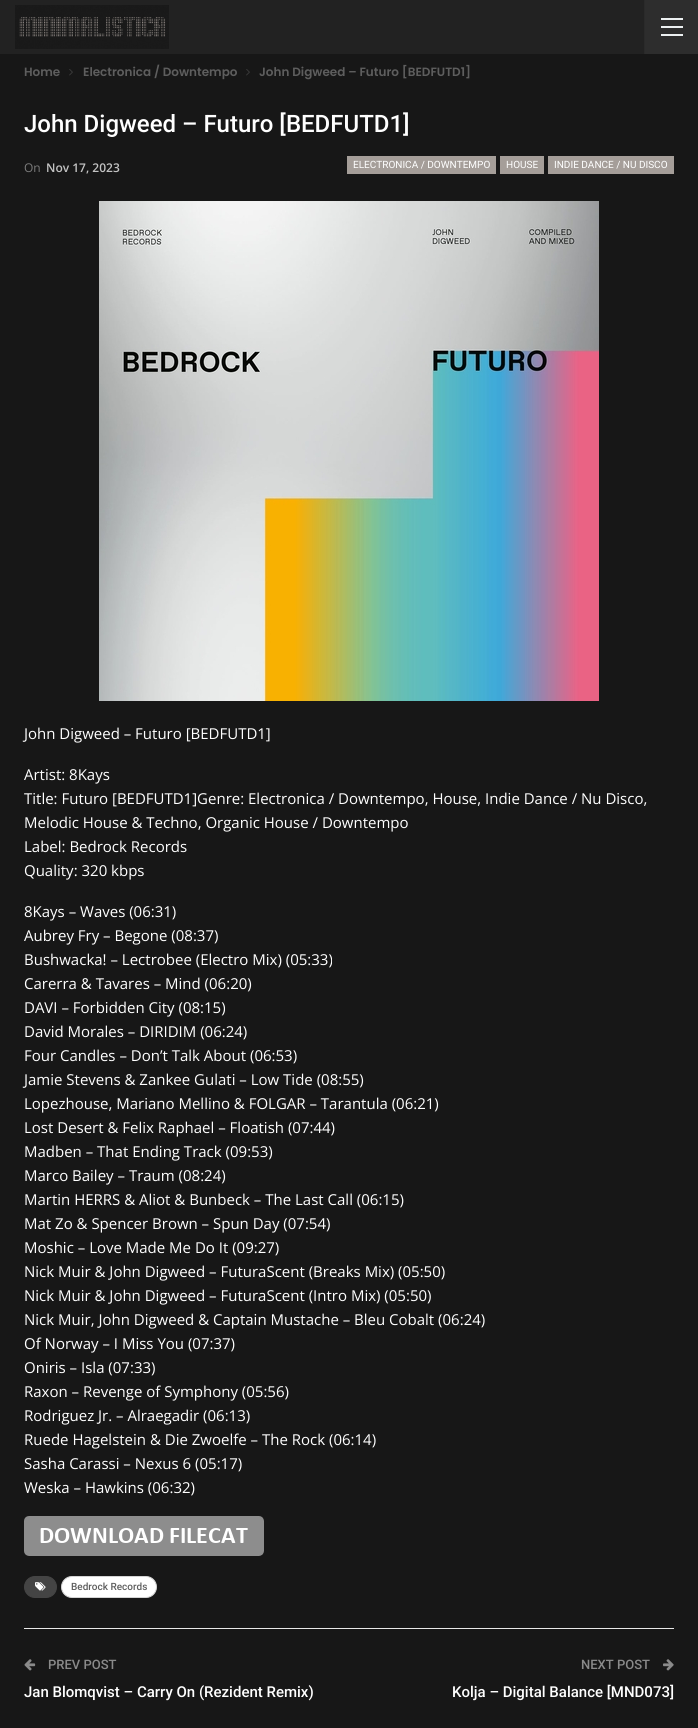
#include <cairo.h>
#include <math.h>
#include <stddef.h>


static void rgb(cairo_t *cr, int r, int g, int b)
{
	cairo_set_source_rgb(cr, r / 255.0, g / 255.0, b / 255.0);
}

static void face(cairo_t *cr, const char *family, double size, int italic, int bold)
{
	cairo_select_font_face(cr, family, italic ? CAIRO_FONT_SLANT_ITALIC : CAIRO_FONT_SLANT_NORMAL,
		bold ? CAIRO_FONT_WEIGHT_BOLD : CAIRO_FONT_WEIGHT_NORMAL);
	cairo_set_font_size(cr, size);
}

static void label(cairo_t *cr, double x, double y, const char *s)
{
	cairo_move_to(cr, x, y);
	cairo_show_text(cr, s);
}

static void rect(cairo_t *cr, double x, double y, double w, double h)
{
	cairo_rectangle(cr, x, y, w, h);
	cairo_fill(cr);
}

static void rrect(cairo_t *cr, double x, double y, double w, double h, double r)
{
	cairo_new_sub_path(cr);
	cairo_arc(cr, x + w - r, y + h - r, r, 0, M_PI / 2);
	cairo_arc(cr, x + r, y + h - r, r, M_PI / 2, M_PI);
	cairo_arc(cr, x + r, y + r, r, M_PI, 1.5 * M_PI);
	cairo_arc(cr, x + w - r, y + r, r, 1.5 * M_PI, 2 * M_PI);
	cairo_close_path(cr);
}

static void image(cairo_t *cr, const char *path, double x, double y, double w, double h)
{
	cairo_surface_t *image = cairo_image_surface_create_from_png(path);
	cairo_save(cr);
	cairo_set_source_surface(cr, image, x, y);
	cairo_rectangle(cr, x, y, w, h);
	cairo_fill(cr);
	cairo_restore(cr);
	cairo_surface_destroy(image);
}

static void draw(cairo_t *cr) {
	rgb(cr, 23, 23, 23);
	cairo_paint(cr);
	rgb(cr, 34, 34, 34);
	rect(cr, 0, 0, 644, 54);
	image(cr, "image0.png", 15, 5, 154, 44);
	rgb(cr, 45, 45, 45);
	rect(cr, 645, 0, 53, 54);
	rgb(cr, 42, 42, 42);
	rect(cr, 644, 0, 1, 54);
	rgb(cr, 236, 240, 241);
	rect(cr, 661, 26, 22, 2);
	rect(cr, 661, 18, 22, 2);
	rect(cr, 661, 34, 22, 2);
	face(cr, "Poppins SemiBold", 12, 0, 0);
	rgb(cr, 94, 94, 94);
	label(cr, 24, 76, "Home");
	image(cr, "image1.png", 69, 69, 4, 7);
	label(cr, 83, 76, "Electronica / Downtempo");
	image(cr, "image1.png", 246, 69, 4, 7);
	label(cr, 259, 76, "John Digweed – Futuro [BEDFUTD1]");
	face(cr, "Roboto Medium", 24, 0, 0);
	rgb(cr, 255, 255, 255);
	label(cr, 24, 132, "John Digweed – Futuro [BEDFUTD1]");
	face(cr, "Open Sans", 12, 0, 0);
	rgb(cr, 125, 125, 125);
	label(cr, 24, 172, "On");
	face(cr, "Open Sans SemiBold", 12, 0, 0);
	rgb(cr, 195, 195, 195);
	label(cr, 46, 172, "Nov 17, 2023");
	rgb(cr, 165, 158, 153);
	rect(cr, 347, 156, 149, 18);
	face(cr, "Roboto", 10, 0, 0);
	rgb(cr, 255, 255, 255);
	label(cr, 353, 168, "ELECTRONICA / DOWNTEMPO");
	rgb(cr, 165, 158, 153);
	rect(cr, 500, 156, 44, 18);
	rgb(cr, 255, 255, 255);
	label(cr, 506, 168, "HOUSE");
	rgb(cr, 165, 158, 153);
	rect(cr, 548, 156, 126, 18);
	rgb(cr, 255, 255, 255);
	label(cr, 554, 168, "INDIE DANCE / NU DISCO");
	image(cr, "image2.png", 99, 201, 500, 500);
	face(cr, "Open Sans", 15, 0, 0);
	label(cr, 24, 739, "John Digweed – Futuro [BEDFUTD1]");
	label(cr, 24, 780, "Artist: 8Kays");
	label(cr, 24, 804, "Title: Futuro [BEDFUTD1]Genre: Electronica / Downtempo, House, Indie Dance / Nu Disco,");
	label(cr, 24, 828, "Melodic House & Techno, Organic House / Downtempo");
	label(cr, 24, 852, "Label: Bedrock Records");
	label(cr, 24, 876, "Quality: 320 kbps");
	label(cr, 24, 917, "8Kays – Waves (06:31)");
	label(cr, 24, 941, "Aubrey Fry – Begone (08:37)");
	label(cr, 24, 965, "Bushwacka! – Lectrobee (Electro Mix) (05:33)");
	label(cr, 24, 989, "Carerra & Tavares – Mind (06:20)");
	label(cr, 24, 1013, "DAVI – Forbidden City (08:15)");
	label(cr, 24, 1037, "David Morales – DIRIDIM (06:24)");
	label(cr, 24, 1061, "Four Candles – Don’t Talk About (06:53)");
	label(cr, 24, 1085, "Jamie Stevens & Zankee Gulati – Low Tide (08:55)");
	label(cr, 24, 1109, "Lopezhouse, Mariano Mellino & FOLGAR – Tarantula (06:21)");
	label(cr, 24, 1133, "Lost Desert & Felix Raphael – Floatish (07:44)");
	label(cr, 24, 1157, "Madben – That Ending Track (09:53)");
	label(cr, 24, 1181, "Marco Bailey – Traum (08:24)");
	label(cr, 24, 1205, "Martin HERRS & Aliot & Bunbeck – The Last Call (06:15)");
	label(cr, 24, 1229, "Mat Zo & Spencer Brown – Spun Day (07:54)");
	label(cr, 24, 1253, "Moshic – Love Made Me Do It (09:27)");
	label(cr, 24, 1277, "Nick Muir & John Digweed – FuturaScent (Breaks Mix) (05:50)");
	label(cr, 24, 1301, "Nick Muir & John Digweed – FuturaScent (Intro Mix) (05:50)");
	label(cr, 24, 1325, "Nick Muir, John Digweed & Captain Mustache – Bleu Cobalt (06:24)");
	label(cr, 24, 1349, "Of Norway – I Miss You (07:37)");
	label(cr, 24, 1373, "Oniris – Isla (07:33)");
	label(cr, 24, 1397, "Raxon – Revenge of Symphony (05:56)");
	label(cr, 24, 1421, "Rodriguez Jr. – Alraegadir (06:13)");
	label(cr, 24, 1445, "Ruede Hagelstein & Die Zwoelfe – The Rock (06:14)");
	label(cr, 24, 1469, "Sasha Carassi – Nexus 6 (05:17)");
	label(cr, 24, 1493, "Weska – Hawkins (06:32)");
	image(cr, "image3.png", 24, 1516, 240, 40);
	rgb(cr, 68, 68, 68);
	rrect(cr, 24.5, 1576.5, 32, 21, 10.5);
	cairo_fill_preserve(cr);
	cairo_set_line_width(cr, 1);
	cairo_stroke(cr);
	image(cr, "image4.png", 35, 1582, 11, 9);
	rgb(cr, 255, 255, 255);
	rrect(cr, 61.5, 1576.5, 95, 21, 10.5);
	cairo_fill_preserve(cr);
	rgb(cr, 212, 212, 212);
	cairo_stroke(cr);
	face(cr, "Roboto Medium", 10, 0, 0);
	rgb(cr, 94, 94, 94);
	label(cr, 71, 1590, "Bedrock Records");
	rgb(cr, 232, 232, 232);
	rect(cr, 24, 1628, 650, 1);
	image(cr, "image5.png", 24, 1659, 12, 12);
	face(cr, "Roboto Medium", 13, 0, 0);
	rgb(cr, 138, 138, 138);
	label(cr, 48, 1669, "PREV POST");
	face(cr, "Roboto Medium", 15, 0, 0);
	rgb(cr, 255, 255, 255);
	label(cr, 24, 1697, "Jan Blomqvist – Carry On (Rezident Remix)");
	face(cr, "Roboto Medium", 13, 0, 0);
	rgb(cr, 138, 138, 138);
	label(cr, 581, 1669, "NEXT POST");
	image(cr, "image6.png", 663, 1659, 11, 12);
	face(cr, "Roboto Medium", 15, 0, 0);
	rgb(cr, 255, 255, 255);
	label(cr, 452, 1697, "Kolja – Digital Balance [MND073]");
}

int main(void) {
	cairo_surface_t *surface = cairo_image_surface_create(CAIRO_FORMAT_RGB24, 698, 1728);
	cairo_t *cr = cairo_create(surface);
	cairo_font_options_t *options = cairo_font_options_create();
	cairo_font_options_set_hint_metrics(options, CAIRO_HINT_METRICS_OFF);
	cairo_font_options_set_hint_style(options, CAIRO_HINT_STYLE_NONE);
	cairo_set_font_options(cr, options);
	cairo_set_miter_limit(cr, 4);
	draw(cr);
	cairo_surface_write_to_png(surface, "render.png");
	cairo_font_options_destroy(options);
	cairo_destroy(cr);
	cairo_surface_destroy(surface);
	return 0;
}
